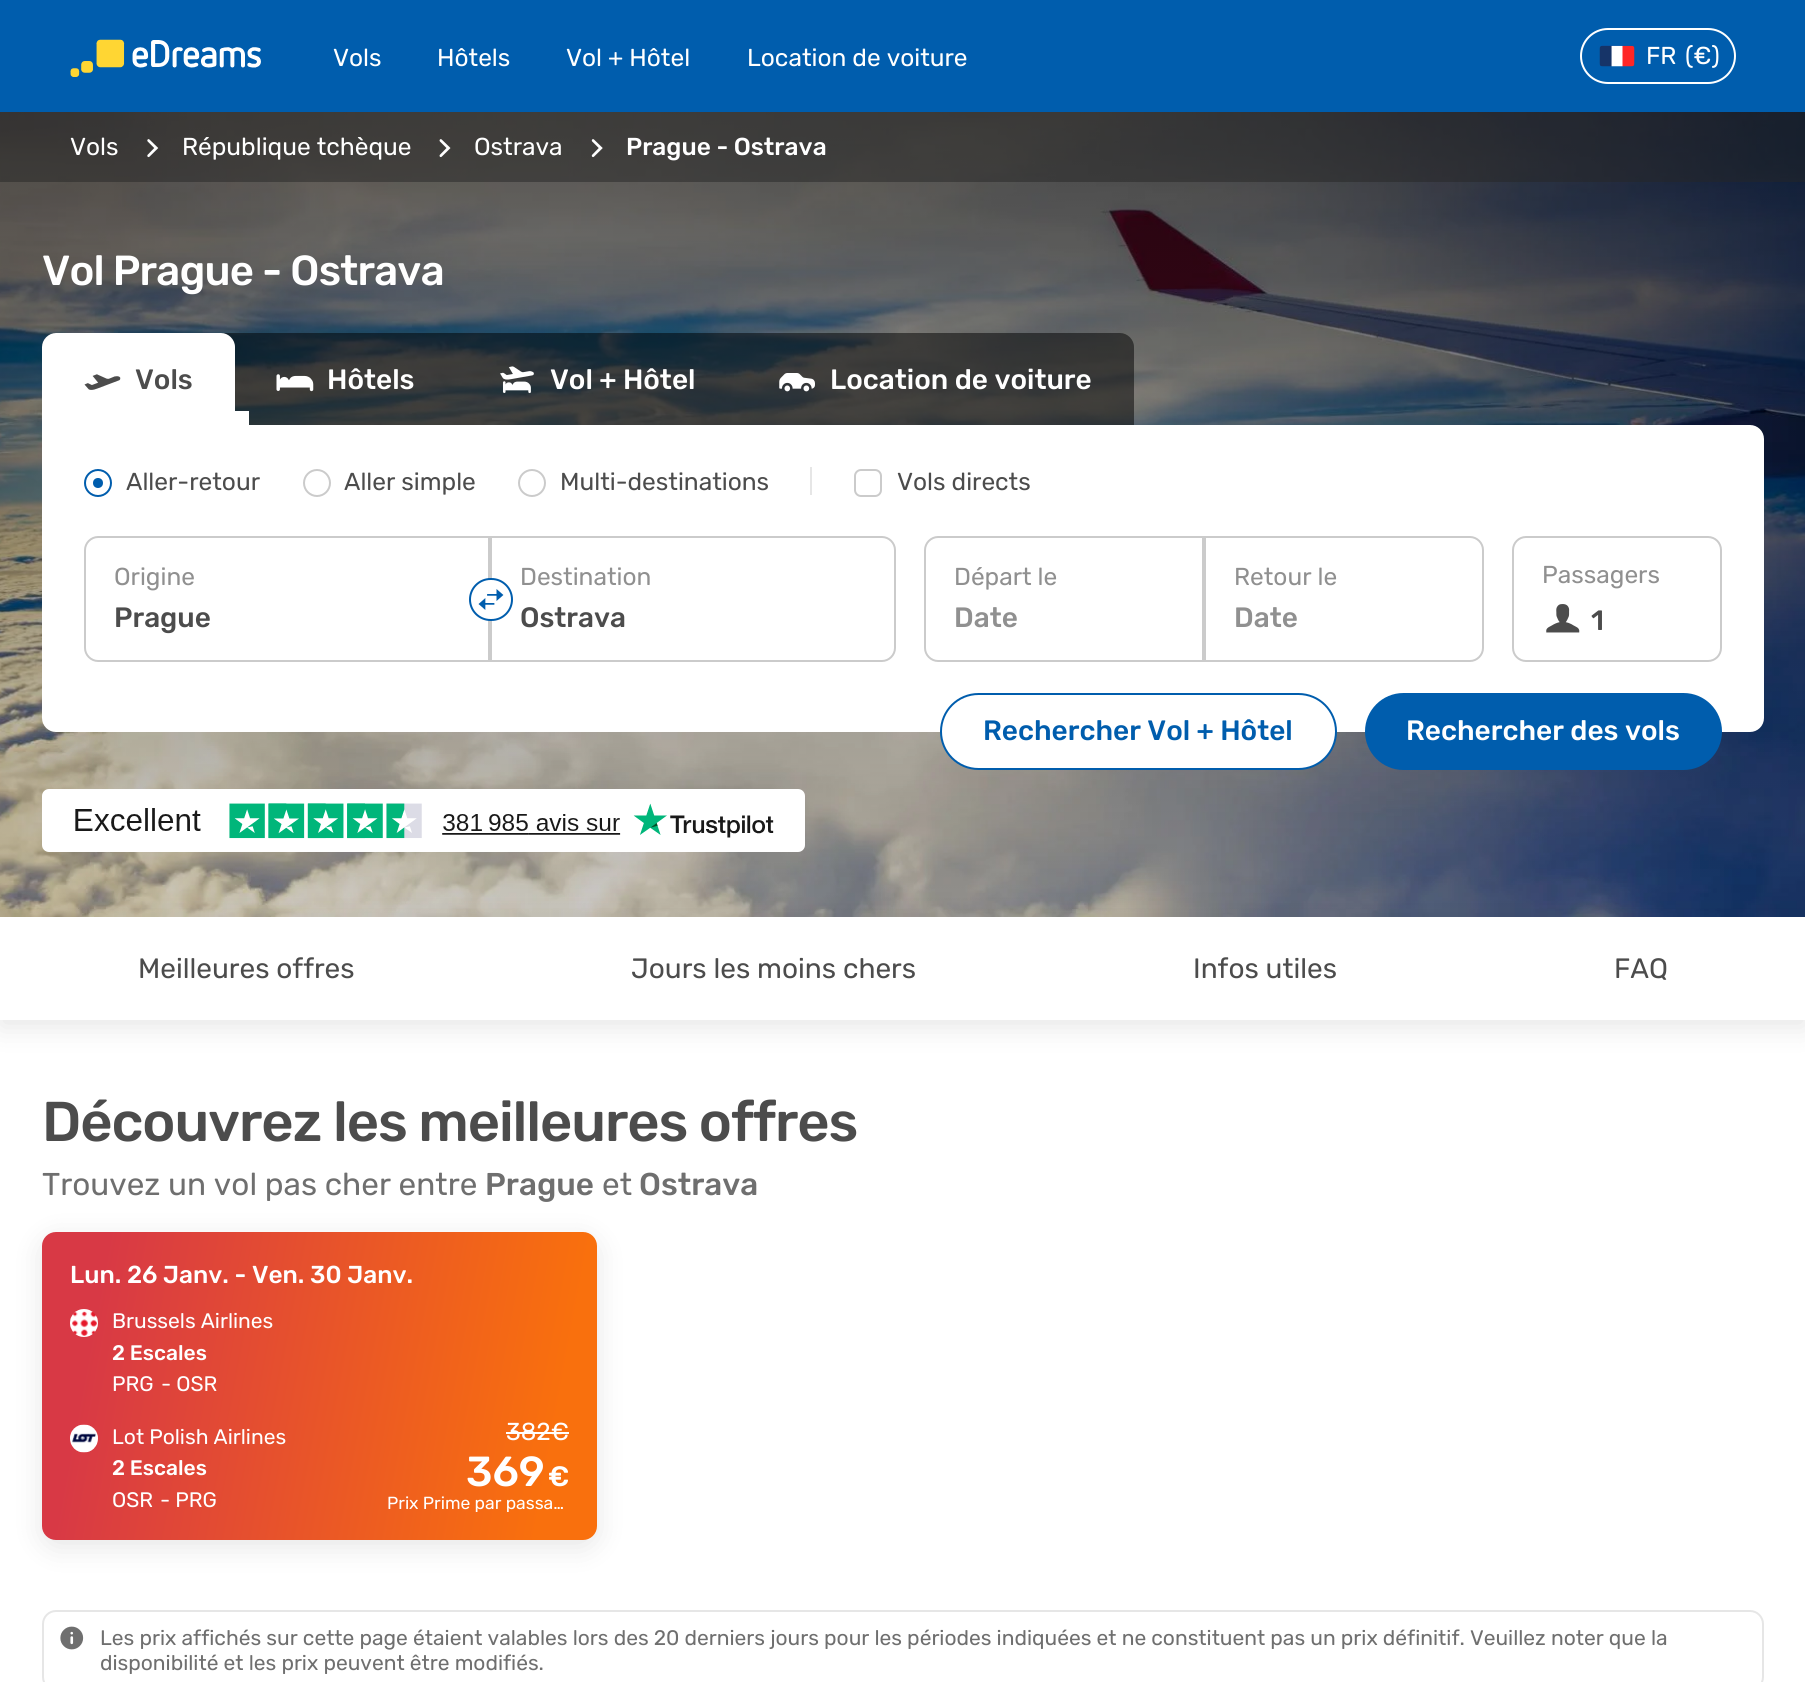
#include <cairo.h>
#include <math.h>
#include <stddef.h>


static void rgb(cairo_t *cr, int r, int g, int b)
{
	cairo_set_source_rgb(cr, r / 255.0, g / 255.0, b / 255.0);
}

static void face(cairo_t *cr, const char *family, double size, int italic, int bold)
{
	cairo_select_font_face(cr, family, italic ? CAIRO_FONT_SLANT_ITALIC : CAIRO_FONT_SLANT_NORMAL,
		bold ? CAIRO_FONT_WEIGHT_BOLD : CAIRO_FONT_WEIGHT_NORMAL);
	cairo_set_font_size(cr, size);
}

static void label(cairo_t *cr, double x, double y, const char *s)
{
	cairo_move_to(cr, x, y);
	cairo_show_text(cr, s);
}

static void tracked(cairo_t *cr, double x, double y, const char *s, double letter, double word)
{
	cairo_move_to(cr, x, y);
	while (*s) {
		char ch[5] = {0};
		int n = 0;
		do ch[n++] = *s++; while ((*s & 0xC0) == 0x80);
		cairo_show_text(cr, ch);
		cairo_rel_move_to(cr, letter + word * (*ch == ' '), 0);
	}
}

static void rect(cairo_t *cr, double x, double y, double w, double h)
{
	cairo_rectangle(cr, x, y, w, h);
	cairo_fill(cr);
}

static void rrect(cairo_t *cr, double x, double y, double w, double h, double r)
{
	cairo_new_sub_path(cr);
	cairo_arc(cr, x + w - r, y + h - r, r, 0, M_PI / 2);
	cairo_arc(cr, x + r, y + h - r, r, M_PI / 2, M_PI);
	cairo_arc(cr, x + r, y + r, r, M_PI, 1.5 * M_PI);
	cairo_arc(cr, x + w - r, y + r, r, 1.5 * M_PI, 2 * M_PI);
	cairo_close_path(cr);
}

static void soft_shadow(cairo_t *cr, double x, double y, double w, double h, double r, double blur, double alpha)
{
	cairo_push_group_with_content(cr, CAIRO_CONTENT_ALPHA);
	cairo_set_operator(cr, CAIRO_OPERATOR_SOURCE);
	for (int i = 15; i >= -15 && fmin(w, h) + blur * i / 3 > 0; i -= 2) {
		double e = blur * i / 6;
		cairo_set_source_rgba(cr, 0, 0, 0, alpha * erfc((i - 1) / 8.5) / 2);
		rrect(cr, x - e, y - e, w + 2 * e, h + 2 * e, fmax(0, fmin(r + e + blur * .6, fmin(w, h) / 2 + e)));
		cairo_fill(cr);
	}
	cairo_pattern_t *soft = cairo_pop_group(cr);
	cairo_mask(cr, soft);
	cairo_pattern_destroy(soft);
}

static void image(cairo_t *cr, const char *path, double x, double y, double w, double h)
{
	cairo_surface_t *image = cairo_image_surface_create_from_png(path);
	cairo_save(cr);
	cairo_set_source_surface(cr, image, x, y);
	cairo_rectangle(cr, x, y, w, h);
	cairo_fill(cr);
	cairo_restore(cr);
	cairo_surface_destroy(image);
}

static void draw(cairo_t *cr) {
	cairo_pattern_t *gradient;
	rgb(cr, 255, 255, 255);
	cairo_paint(cr);
	rgb(cr, 0, 93, 173);
	rect(cr, 0, 0, 1805, 112);
	image(cr, "image0.png", 70, 39, 191, 38);
	face(cr, "Rubik", 24.5, 0, 0);
	rgb(cr, 255, 255, 255);
	label(cr, 333, 66, "Vols");
	label(cr, 437, 66, "Hôtels");
	label(cr, 566, 66, "Vol + Hôtel");
	label(cr, 747, 66, "Location de voiture");
	rrect(cr, 1581, 29, 154, 54, 27);
	cairo_stroke(cr);
	image(cr, "image1.png", 1599, 45, 36, 22);
	label(cr, 1646, 64, "FR");
	label(cr, 1685, 64, "(€)");
	image(cr, "image2.png", 0, 112, 1805, 805);
	cairo_set_source_rgba(cr, 0.149, 0.149, 0.149, 0.5);
	rect(cr, 0, 112, 1805, 70);
	rgb(cr, 255, 255, 255);
	label(cr, 70, 155, "Vols");
	image(cr, "image3.png", 147, 139, 12, 19);
	label(cr, 182, 155, "République tchèque");
	image(cr, "image4.png", 439, 139, 12, 19);
	label(cr, 474, 155, "Ostrava");
	image(cr, "image5.png", 591, 139, 12, 19);
	face(cr, "Rubik Medium", 24.5, 0, 0);
	label(cr, 626, 155, "Prague - Ostrava");
	face(cr, "Rubik Medium", 42, 0, 0);
	tracked(cr, 42, 285, "Vol Prague - Ostrava", -0.8, 0);
	cairo_set_source_rgba(cr, 0, 0, 0, 0.5);
	cairo_new_path(cr);
	cairo_move_to(cr, 56, 333);
	cairo_line_to(cr, 1120, 333);
	cairo_curve_to(cr, 1127.5, 333, 1134, 339.5, 1134, 347);
	cairo_line_to(cr, 1134, 439);
	cairo_line_to(cr, 42, 439);
	cairo_line_to(cr, 42, 347);
	cairo_curve_to(cr, 42, 339.5, 48.5, 333, 56, 333);
	cairo_close_path(cr);
	cairo_fill(cr);
	rgb(cr, 255, 255, 255);
	cairo_new_path(cr);
	cairo_move_to(cr, 56, 333);
	cairo_line_to(cr, 221, 333);
	cairo_curve_to(cr, 228.5, 333, 235, 339.5, 235, 347);
	cairo_line_to(cr, 235, 439);
	cairo_line_to(cr, 42, 439);
	cairo_line_to(cr, 42, 347);
	cairo_curve_to(cr, 42, 339.5, 48.5, 333, 56, 333);
	cairo_close_path(cr);
	cairo_fill(cr);
	image(cr, "image6.png", 84, 374, 37, 16);
	face(cr, "Rubik Medium", 28, 0, 0);
	rgb(cr, 76, 76, 76);
	label(cr, 135, 389, "Vols");
	rgb(cr, 255, 255, 255);
	rect(cr, 235, 411, 14, 14);
	image(cr, "image7.png", 276, 374, 38, 18);
	label(cr, 327, 389, "Hôtels");
	image(cr, "image8.png", 500, 366, 34, 28);
	label(cr, 550, 389, "Vol + Hôtel");
	image(cr, "image9.png", 779, 373, 36, 19);
	label(cr, 830, 389, "Location de voiture");
	rrect(cr, 42, 425, 1722, 307, 14);
	cairo_fill(cr);
	cairo_arc(cr, 98, 483, 13, 0, 2 * M_PI);
	rgb(cr, 0, 93, 173);
	cairo_stroke(cr);
	cairo_arc(cr, 98, 483, 5, 0, 2 * M_PI);
	cairo_fill(cr);
	face(cr, "Rubik", 24.5, 0, 0);
	rgb(cr, 76, 76, 76);
	label(cr, 126, 490, "Aller-retour");
	cairo_new_path(cr);
	cairo_arc(cr, 317, 483, 13, 0, 2 * M_PI);
	rgb(cr, 203, 203, 203);
	cairo_stroke(cr);
	rgb(cr, 76, 76, 76);
	label(cr, 344, 490, "Aller simple");
	cairo_new_path(cr);
	cairo_arc(cr, 532, 483, 13, 0, 2 * M_PI);
	rgb(cr, 203, 203, 203);
	cairo_stroke(cr);
	rgb(cr, 76, 76, 76);
	label(cr, 560, 490, "Multi-destinations");
	rgb(cr, 230, 230, 230);
	rect(cr, 810, 467, 2, 28);
	rrect(cr, 855, 470, 26, 26, 6);
	rgb(cr, 203, 203, 203);
	cairo_stroke(cr);
	rgb(cr, 76, 76, 76);
	label(cr, 897, 490, "Vols directs");
	cairo_new_path(cr);
	cairo_move_to(cr, 98, 537);
	cairo_line_to(cr, 489, 537);
	cairo_line_to(cr, 489, 661);
	cairo_line_to(cr, 98, 661);
	cairo_curve_to(cr, 91, 661, 85, 655, 85, 648);
	cairo_line_to(cr, 85, 550);
	cairo_curve_to(cr, 85, 543, 91, 537, 98, 537);
	cairo_close_path(cr);
	rgb(cr, 203, 203, 203);
	cairo_stroke(cr);
	rgb(cr, 144, 144, 144);
	label(cr, 114, 585, "Origine");
	face(cr, "Rubik Medium", 28, 0, 0);
	rgb(cr, 76, 76, 76);
	label(cr, 114, 627, "Prague");
	cairo_new_path(cr);
	cairo_move_to(cr, 491, 537);
	cairo_line_to(cr, 882, 537);
	cairo_curve_to(cr, 889, 537, 895, 543, 895, 550);
	cairo_line_to(cr, 895, 648);
	cairo_curve_to(cr, 895, 655, 889, 661, 882, 661);
	cairo_line_to(cr, 491, 661);
	cairo_close_path(cr);
	rgb(cr, 203, 203, 203);
	cairo_stroke(cr);
	rgb(cr, 255, 255, 255);
	rrect(cr, 470, 579, 42, 41, 20.5);
	cairo_fill_preserve(cr);
	rgb(cr, 0, 93, 173);
	cairo_stroke(cr);
	image(cr, "image10.png", 478, 589, 26, 21);
	face(cr, "Rubik", 24.5, 0, 0);
	rgb(cr, 144, 144, 144);
	label(cr, 520, 585, "Destination");
	face(cr, "Rubik Medium", 28, 0, 0);
	rgb(cr, 76, 76, 76);
	label(cr, 520, 627, "Ostrava");
	cairo_new_path(cr);
	cairo_move_to(cr, 938, 537);
	cairo_line_to(cr, 1203, 537);
	cairo_line_to(cr, 1203, 661);
	cairo_line_to(cr, 938, 661);
	cairo_curve_to(cr, 931, 661, 925, 655, 925, 648);
	cairo_line_to(cr, 925, 550);
	cairo_curve_to(cr, 925, 543, 931, 537, 938, 537);
	cairo_close_path(cr);
	rgb(cr, 203, 203, 203);
	cairo_stroke(cr);
	face(cr, "Rubik", 24.5, 0, 0);
	rgb(cr, 144, 144, 144);
	label(cr, 954, 585, "Départ le");
	face(cr, "Rubik Medium", 28, 0, 0);
	label(cr, 954, 627, "Date");
	cairo_new_path(cr);
	cairo_move_to(cr, 1205, 537);
	cairo_line_to(cr, 1470, 537);
	cairo_curve_to(cr, 1477, 537, 1483, 543, 1483, 550);
	cairo_line_to(cr, 1483, 648);
	cairo_curve_to(cr, 1483, 655, 1477, 661, 1470, 661);
	cairo_line_to(cr, 1205, 661);
	cairo_close_path(cr);
	rgb(cr, 203, 203, 203);
	cairo_stroke(cr);
	face(cr, "Rubik", 24.5, 0, 0);
	rgb(cr, 144, 144, 144);
	label(cr, 1234, 585, "Retour le");
	face(cr, "Rubik Medium", 28, 0, 0);
	label(cr, 1234, 627, "Date");
	rrect(cr, 1513, 537, 208, 124, 13);
	rgb(cr, 203, 203, 203);
	cairo_stroke(cr);
	face(cr, "Rubik", 24.5, 0, 0);
	rgb(cr, 144, 144, 144);
	label(cr, 1542, 583, "Passagers");
	image(cr, "image11.png", 1546, 604, 34, 29);
	face(cr, "Rubik Medium", 28, 0, 0);
	rgb(cr, 76, 76, 76);
	label(cr, 1591, 630, "1");
	rgb(cr, 255, 255, 255);
	rrect(cr, 941, 694, 395, 75, 37.5);
	cairo_fill_preserve(cr);
	rgb(cr, 0, 93, 173);
	cairo_stroke(cr);
	label(cr, 983, 740, "Rechercher Vol + Hôtel");
	rrect(cr, 1365, 693, 357, 77, 38.5);
	cairo_fill(cr);
	rgb(cr, 255, 255, 255);
	label(cr, 1406, 740, "Rechercher des vols");
	rrect(cr, 42, 789, 763, 63, 7);
	cairo_fill(cr);
	image(cr, "image12.png", 75, 803, 699, 36);
	rgb(cr, 0, 0, 0);
	soft_shadow(cr, 0, 924, 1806, 103, 0, 14, 0.1);
	rgb(cr, 255, 255, 255);
	rect(cr, 0, 917, 1805, 103);
	face(cr, "Rubik", 28, 0, 0);
	rgb(cr, 76, 76, 76);
	label(cr, 138, 978, "Meilleures offres");
	label(cr, 631, 978, "Jours les moins chers");
	label(cr, 1193, 978, "Infos utiles");
	label(cr, 1614, 978, "FAQ");
	face(cr, "Rubik Medium", 56, 0, 0);
	tracked(cr, 42, 1141, "Découvrez les meilleures offres", -1.1, 0);
	face(cr, "Rubik", 31.5, 0, 0);
	rgb(cr, 111, 111, 111);
	label(cr, 42, 1195, "Trouvez un vol pas cher entre");
	face(cr, "Rubik Medium", 31.5, 0, 0);
	label(cr, 485, 1195, "Prague");
	face(cr, "Rubik", 31.5, 0, 0);
	label(cr, 602, 1195, "et");
	face(cr, "Rubik Medium", 31.5, 0, 0);
	label(cr, 639, 1195, "Ostrava");
	rgb(cr, 0, 0, 0);
	soft_shadow(cr, 42, 1239, 555, 308, 14, 14, 0.1);
	gradient = cairo_pattern_create_linear(24, 1331, 615, 1441);
	cairo_pattern_add_color_stop_rgba(gradient, 0.11, 0.847, 0.224, 0.271, 1);
	cairo_pattern_add_color_stop_rgba(gradient, 0.9, 0.976, 0.439, 0.051, 1);
	cairo_set_source(cr, gradient);
	cairo_pattern_destroy(gradient);
	rrect(cr, 42, 1232, 555, 308, 14);
	cairo_fill(cr);
	face(cr, "Rubik Medium", 24.5, 0, 0);
	rgb(cr, 255, 255, 255);
	label(cr, 70, 1283, "Lun. 26 Janv. - Ven. 30 Janv.");
	image(cr, "image13.png", 70, 1309, 28, 28);
	face(cr, "Rubik", 21, 0, 0);
	label(cr, 112, 1328, "Brussels Airlines");
	face(cr, "Rubik Medium", 21, 0, 0);
	label(cr, 112, 1360, "2 Escales");
	face(cr, "Rubik", 21, 0, 0);
	label(cr, 112, 1391, "PRG");
	label(cr, 161, 1391, "- OSR");
	image(cr, "image14.png", 70, 1424, 28, 29);
	label(cr, 112, 1444, "Lot Polish Airlines");
	face(cr, "Rubik Medium", 21, 0, 0);
	label(cr, 112, 1475, "2 Escales");
	face(cr, "Rubik", 21, 0, 0);
	label(cr, 112, 1507, "OSR");
	label(cr, 160, 1507, "- PRG");
	face(cr, "Rubik", 24.5, 0, 0);
	label(cr, 506, 1440, "382€");
	rect(cr, 506, 1432, 63, 2);
	face(cr, "Rubik Medium", 42, 0, 0);
	label(cr, 466, 1486, "369");
	face(cr, "Rubik Medium", 28, 0, 0);
	label(cr, 548, 1486, "€");
	cairo_save(cr);
	cairo_rectangle(cr, 387, 1496, 182, 16);
	cairo_clip(cr);
	face(cr, "Rubik", 17.5, 0, 0);
	label(cr, 387, 1509, "Prix Prime par passa…");
	cairo_restore(cr);
	rrect(cr, 43, 1611, 1720, 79, 13);
	rgb(cr, 230, 230, 230);
	cairo_stroke(cr);
	image(cr, "image15.png", 60, 1626, 24, 24);
	face(cr, "Rubik", 21, 0, 0);
	rgb(cr, 111, 111, 111);
	label(cr, 100, 1645, "Les prix affichés sur cette page étaient valables lors des 20 derniers jours pour les périodes indiquées et ne constituent pas un prix définitif. Veuillez noter que la");
	label(cr, 100, 1670, "disponibilité et les prix peuvent être modifiés.");
}

int main(void) {
	cairo_surface_t *surface = cairo_image_surface_create(CAIRO_FORMAT_RGB24, 1805, 1682);
	cairo_t *cr = cairo_create(surface);
	cairo_font_options_t *options = cairo_font_options_create();
	cairo_font_options_set_hint_metrics(options, CAIRO_HINT_METRICS_OFF);
	cairo_font_options_set_hint_style(options, CAIRO_HINT_STYLE_NONE);
	cairo_set_font_options(cr, options);
	cairo_set_miter_limit(cr, 4);
	draw(cr);
	cairo_surface_write_to_png(surface, "render.png");
	cairo_font_options_destroy(options);
	cairo_destroy(cr);
	cairo_surface_destroy(surface);
	return 0;
}
